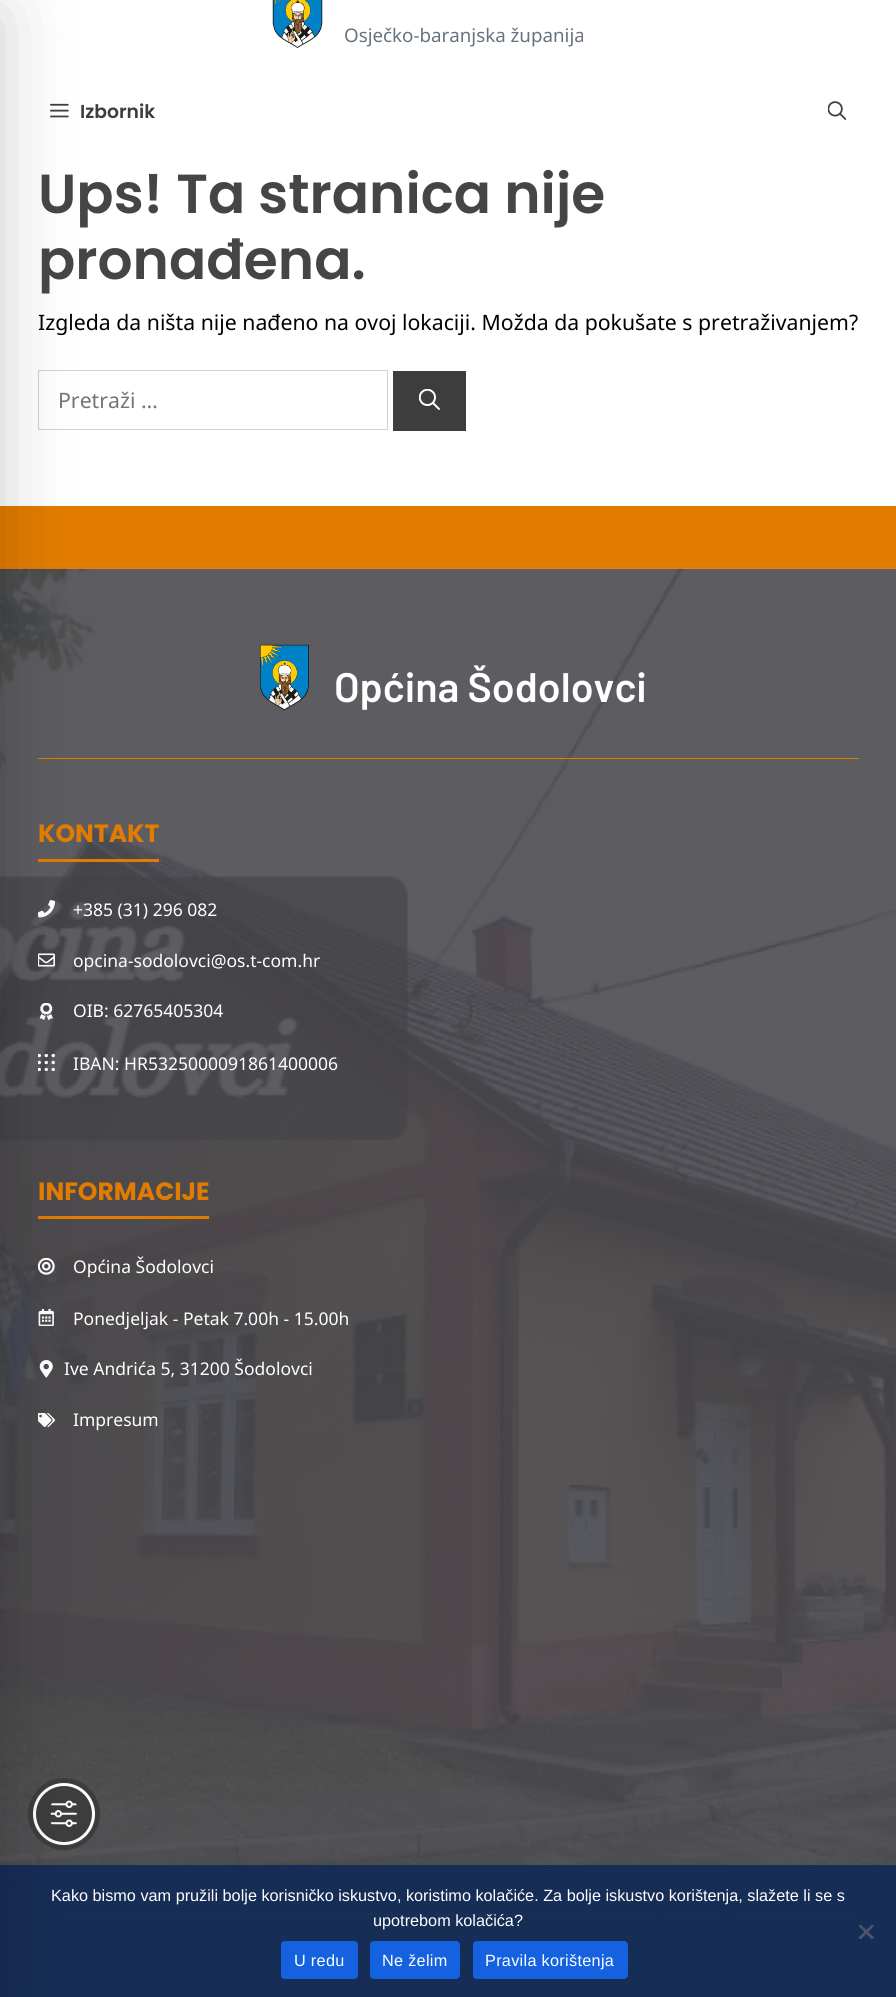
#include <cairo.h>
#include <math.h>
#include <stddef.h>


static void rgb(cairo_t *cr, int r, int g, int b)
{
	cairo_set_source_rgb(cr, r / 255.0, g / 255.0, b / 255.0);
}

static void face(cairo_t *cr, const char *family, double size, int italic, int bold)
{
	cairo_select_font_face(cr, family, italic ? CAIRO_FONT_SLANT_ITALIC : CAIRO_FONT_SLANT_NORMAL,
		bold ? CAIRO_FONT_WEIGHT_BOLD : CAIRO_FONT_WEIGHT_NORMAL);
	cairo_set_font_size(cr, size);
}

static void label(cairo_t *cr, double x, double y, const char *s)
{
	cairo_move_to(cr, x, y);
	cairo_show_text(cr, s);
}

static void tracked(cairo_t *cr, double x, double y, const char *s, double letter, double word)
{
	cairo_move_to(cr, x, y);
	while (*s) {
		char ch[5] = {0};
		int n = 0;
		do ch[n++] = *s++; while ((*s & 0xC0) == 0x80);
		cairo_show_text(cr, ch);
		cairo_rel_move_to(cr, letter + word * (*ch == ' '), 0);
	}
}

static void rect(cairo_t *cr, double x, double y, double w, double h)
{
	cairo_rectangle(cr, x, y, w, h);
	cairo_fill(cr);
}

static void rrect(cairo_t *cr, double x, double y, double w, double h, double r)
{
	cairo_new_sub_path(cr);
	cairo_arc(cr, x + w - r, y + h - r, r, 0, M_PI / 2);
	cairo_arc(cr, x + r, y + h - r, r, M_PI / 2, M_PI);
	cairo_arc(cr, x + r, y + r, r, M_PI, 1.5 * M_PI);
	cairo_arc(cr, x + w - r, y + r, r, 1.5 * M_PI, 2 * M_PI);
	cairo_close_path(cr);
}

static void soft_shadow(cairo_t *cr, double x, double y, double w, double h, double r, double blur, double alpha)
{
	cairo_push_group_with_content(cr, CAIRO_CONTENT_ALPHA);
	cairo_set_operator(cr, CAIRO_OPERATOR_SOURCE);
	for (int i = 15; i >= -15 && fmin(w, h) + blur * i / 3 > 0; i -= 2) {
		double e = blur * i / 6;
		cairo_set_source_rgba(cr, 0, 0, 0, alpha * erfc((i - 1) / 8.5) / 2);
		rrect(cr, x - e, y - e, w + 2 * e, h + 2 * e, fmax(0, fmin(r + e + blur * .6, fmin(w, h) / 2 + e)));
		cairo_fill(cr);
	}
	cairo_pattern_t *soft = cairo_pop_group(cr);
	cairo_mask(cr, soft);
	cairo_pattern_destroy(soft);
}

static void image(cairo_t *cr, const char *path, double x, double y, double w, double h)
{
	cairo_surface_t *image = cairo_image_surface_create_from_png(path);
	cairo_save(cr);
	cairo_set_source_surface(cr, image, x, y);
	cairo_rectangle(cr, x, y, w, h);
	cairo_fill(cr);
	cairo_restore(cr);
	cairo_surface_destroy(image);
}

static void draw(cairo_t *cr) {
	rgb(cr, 255, 255, 255);
	cairo_paint(cr);
	image(cr, "image1.png", 50, 103, 19, 15);
	cairo_rectangle(cr, 38.5, 370.5, 349, 59);
	rgb(cr, 209, 209, 209);
	cairo_set_line_width(cr, 1);
	cairo_stroke(cr);
	rgb(cr, 74, 74, 79);
	rect(cr, 0, 569, 896, 1428);
	rgb(cr, 226, 124, 0);
	rect(cr, 0, 506, 896, 63);
	image(cr, "image4.png", 0, 568, 896, 1429);
	rect(cr, 38, 758, 821, 1);
	rect(cr, 38, 1914, 821, 1);
	rect(cr, 38, 859, 121, 3);
	image(cr, "image6.png", 38, 900, 17, 18);
	image(cr, "image7.png", 38, 953, 17, 14);
	image(cr, "image8.png", 39, 1003, 14, 17);
	image(cr, "image9.png", 38, 1054, 17, 17);
	rect(cr, 38, 1216, 171, 3);
	image(cr, "image10.png", 38, 1258, 17, 17);
	image(cr, "image11.png", 38, 1309, 16, 17);
	image(cr, "image12.png", 39, 1360, 14, 18);
	image(cr, "image13.png", 38, 1413, 17, 14);
	cairo_arc(cr, 64, 1814, 33.5, 0, 2 * M_PI);
	rgb(cr, 61, 61, 61);
	cairo_set_line_width(cr, 5);
	cairo_stroke(cr);
	cairo_arc(cr, 64, 1814, 29.5, 0, 2 * M_PI);
	cairo_fill_preserve(cr);
	rgb(cr, 255, 255, 255);
	cairo_set_line_width(cr, 3);
	cairo_stroke(cr);
	image(cr, "image14.png", 50, 1800, 27, 27);
	cairo_set_source_rgba(cr, 0.078, 0.169, 0.341, 0.95);
	rect(cr, 0, 1865, 896, 132);
	rgb(cr, 0, 0, 0);
	soft_shadow(cr, -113, 13, 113, 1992, 0, 37.5, 0.2);
	image(cr, "image0.png", 272, 0, 51, 49);
	face(cr, "Noto Sans", 18.75, 0, 0);
	rgb(cr, 104, 115, 127);
	label(cr, 344, 42, "Osječko-baranjska županija");
	face(cr, "Poppins SemiBold", 18.75, 0, 0);
	rgb(cr, 61, 61, 61);
	label(cr, 80, 118, "Izbornik");
	image(cr, "image2.png", 828, 101, 18, 19);
	face(cr, "Poppins SemiBold", 55, 0, 0);
	rgb(cr, 69, 69, 69);
	label(cr, 38, 213, "Ups! Ta stranica nije");
	label(cr, 38, 279, "pronađena.");
	face(cr, "Noto Sans", 21.25, 0, 0);
	rgb(cr, 1, 1, 1);
	label(cr, 38, 330, "Izgleda da ništa nije nađeno na ovoj lokaciji. Možda da pokušate s pretraživanjem?");
	rgb(cr, 117, 117, 117);
	label(cr, 58, 408, "Pretraži …");
	rgb(cr, 61, 61, 61);
	rect(cr, 393, 371, 73, 60);
	image(cr, "image3.png", 419, 389, 21, 21);
	image(cr, "image5.png", 260, 644, 49, 67);
	face(cr, "Barlow SemiBold", 41.25, 0, 0);
	rgb(cr, 255, 255, 255);
	label(cr, 334, 702, "Općina Šodolovci");
	face(cr, "Poppins", 25, 0, 1);
	rgb(cr, 226, 124, 0);
	label(cr, 38, 842, "KONTAKT");
	face(cr, "Noto Sans", 17.5, 0, 0);
	rgb(cr, 255, 255, 255);
	label(cr, 73, 916, "+385 (31) 296 082");
	label(cr, 73, 967, "opcina-sodolovci@os.t-com.hr");
	label(cr, 73, 1017, "OIB: 62765405304");
	label(cr, 73, 1070, "IBAN: HR5325000091861400006");
	face(cr, "Poppins", 25, 0, 1);
	rgb(cr, 226, 124, 0);
	label(cr, 38, 1200, "INFORMACIJE");
	face(cr, "Noto Sans", 17.5, 0, 0);
	rgb(cr, 255, 255, 255);
	label(cr, 73, 1273, "Općina Šodolovci");
	label(cr, 73, 1325, "Ponedjeljak - Petak 7.00h - 15.00h");
	label(cr, 64, 1375, "Ive Andrića 5, 31200 Šodolovci");
	label(cr, 73, 1426, "Impresum");
	face(cr, "Liberation Sans", 16.25, 0, 0);
	label(cr, 51, 1901, "Kako bismo vam pružili bolje korisničko iskustvo, koristimo kolačiće. Za bolje iskustvo korištenja, slažete li se s");
	label(cr, 373, 1926, "upotrebom kolačića?");
	rgb(cr, 76, 86, 108);
	cairo_new_path(cr);
	cairo_move_to(cr, 872, 1924.5);
	cairo_line_to(cr, 874, 1926);
	cairo_line_to(cr, 860.5, 1939.5);
	cairo_line_to(cr, 858.5, 1937.5);
	cairo_close_path(cr);
	cairo_fill(cr);
	rgb(cr, 76, 86, 107);
	cairo_new_path(cr);
	cairo_move_to(cr, 858.5, 1926);
	cairo_line_to(cr, 860.5, 1924.5);
	cairo_line_to(cr, 874, 1937.5);
	cairo_line_to(cr, 872, 1939.5);
	cairo_close_path(cr);
	cairo_fill(cr);
	rgb(cr, 20, 98, 224);
	rrect(cr, 281, 1941, 77, 38, 4);
	cairo_fill(cr);
	rgb(cr, 255, 255, 255);
	tracked(cr, 294, 1966, "U redu", 0.3, 0);
	rgb(cr, 20, 98, 224);
	rrect(cr, 370, 1941, 90, 38, 4);
	cairo_fill(cr);
	rgb(cr, 255, 255, 255);
	tracked(cr, 382, 1966, "Ne želim", 0.3, 0);
	rgb(cr, 20, 98, 224);
	rrect(cr, 473, 1941, 155, 38, 4);
	cairo_fill(cr);
	rgb(cr, 255, 255, 255);
	tracked(cr, 485, 1966, "Pravila korištenja", 0.3, 0);
}

int main(void) {
	cairo_surface_t *surface = cairo_image_surface_create(CAIRO_FORMAT_RGB24, 896, 1997);
	cairo_t *cr = cairo_create(surface);
	cairo_font_options_t *options = cairo_font_options_create();
	cairo_font_options_set_hint_metrics(options, CAIRO_HINT_METRICS_OFF);
	cairo_font_options_set_hint_style(options, CAIRO_HINT_STYLE_NONE);
	cairo_set_font_options(cr, options);
	cairo_set_miter_limit(cr, 4);
	draw(cr);
	cairo_surface_write_to_png(surface, "render.png");
	cairo_font_options_destroy(options);
	cairo_destroy(cr);
	cairo_surface_destroy(surface);
	return 0;
}
